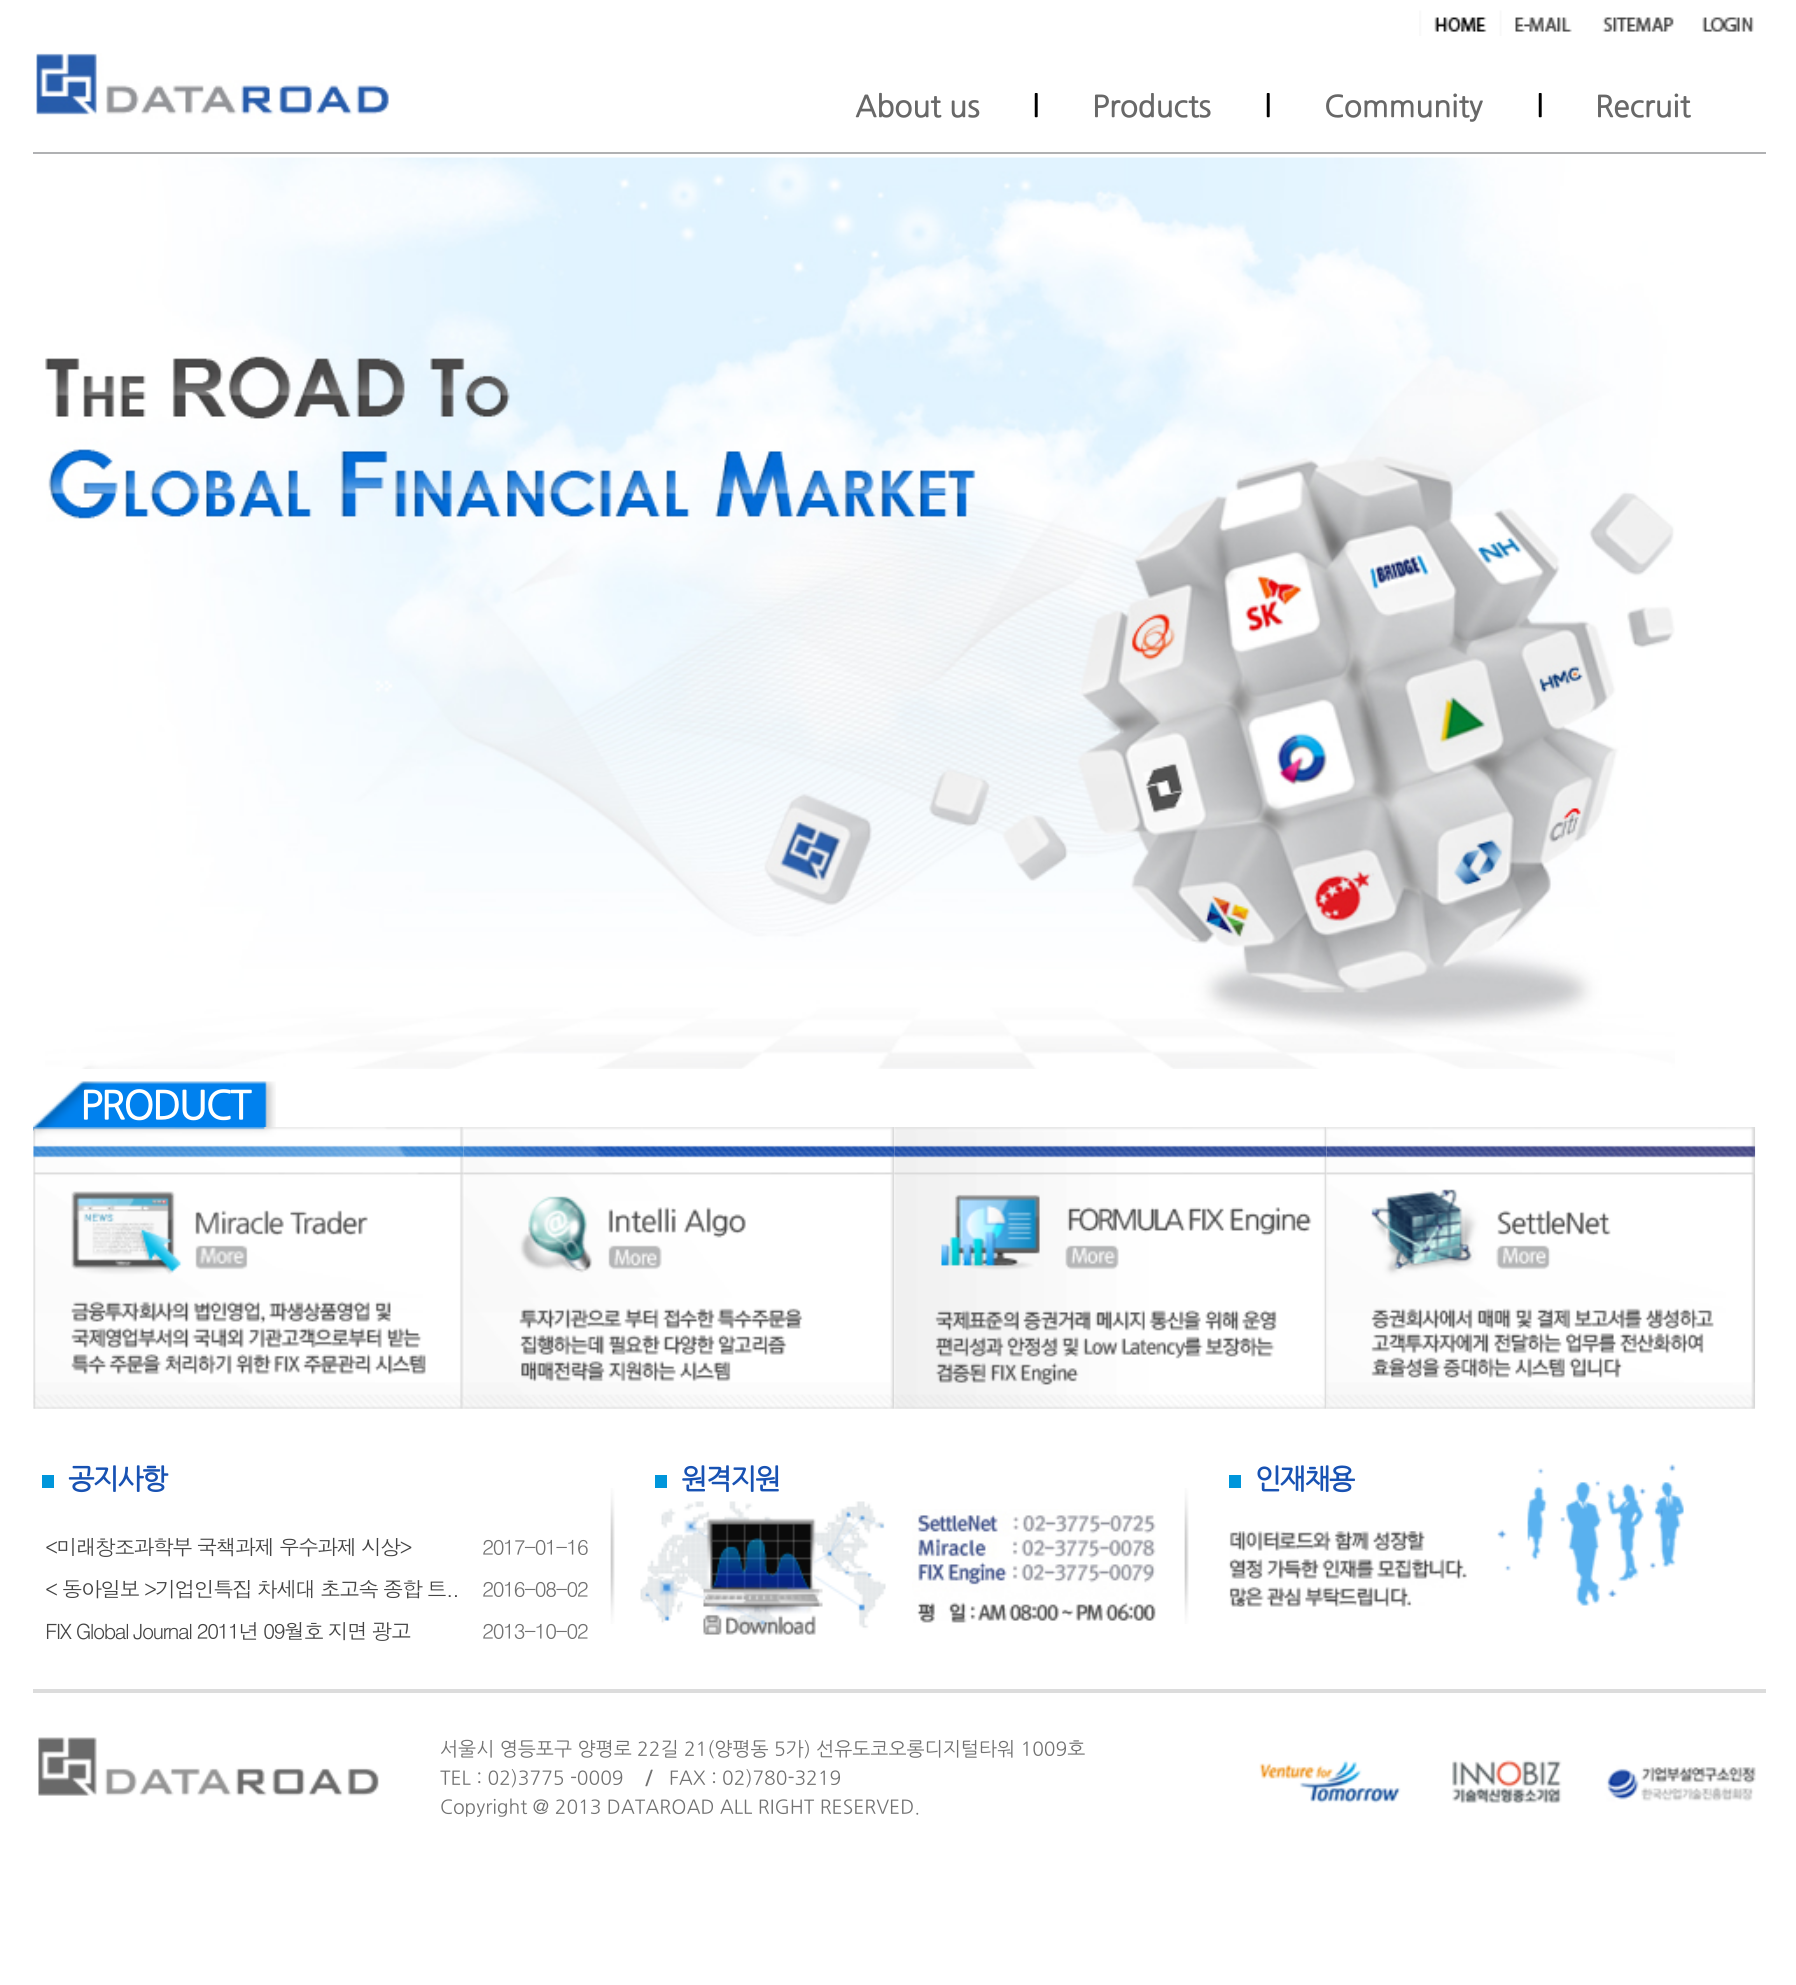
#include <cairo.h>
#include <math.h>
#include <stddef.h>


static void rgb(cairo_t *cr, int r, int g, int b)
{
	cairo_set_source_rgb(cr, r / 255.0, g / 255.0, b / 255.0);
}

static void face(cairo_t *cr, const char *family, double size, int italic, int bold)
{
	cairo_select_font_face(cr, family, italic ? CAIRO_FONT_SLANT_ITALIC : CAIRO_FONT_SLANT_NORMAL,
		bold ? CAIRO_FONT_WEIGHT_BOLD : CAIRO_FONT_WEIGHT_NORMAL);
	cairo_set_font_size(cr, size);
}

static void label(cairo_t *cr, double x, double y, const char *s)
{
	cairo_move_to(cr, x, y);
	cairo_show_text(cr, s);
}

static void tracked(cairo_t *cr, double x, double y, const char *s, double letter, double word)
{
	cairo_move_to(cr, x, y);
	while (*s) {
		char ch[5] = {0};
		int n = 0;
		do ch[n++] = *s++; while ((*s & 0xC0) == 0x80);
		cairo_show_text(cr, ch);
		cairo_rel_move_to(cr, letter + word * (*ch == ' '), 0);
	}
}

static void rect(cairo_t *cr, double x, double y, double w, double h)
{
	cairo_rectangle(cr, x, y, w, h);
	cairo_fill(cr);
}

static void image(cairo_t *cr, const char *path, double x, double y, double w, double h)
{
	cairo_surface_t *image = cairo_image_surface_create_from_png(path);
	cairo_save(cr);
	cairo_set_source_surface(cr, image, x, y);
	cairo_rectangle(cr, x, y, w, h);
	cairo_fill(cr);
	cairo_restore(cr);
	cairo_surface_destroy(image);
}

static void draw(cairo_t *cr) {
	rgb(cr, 255, 255, 255);
	cairo_paint(cr);
	rgb(cr, 176, 177, 179);
	rect(cr, 33, 152, 1733, 2);
	image(cr, "image0.png", 1419, 10, 83, 26);
	image(cr, "image1.png", 1515, 17, 57, 15);
	image(cr, "image2.png", 1602, 17, 72, 15);
	image(cr, "image3.png", 1702, 17, 52, 15);
	image(cr, "image4.png", 36, 53, 353, 66);
	face(cr, "NanumGothic", 29.5, 0, 1);
	rgb(cr, 104, 104, 104);
	label(cr, 855, 116, "About us");
	rgb(cr, 0, 0, 0);
	label(cr, 1032, 116, "l");
	rgb(cr, 104, 104, 104);
	label(cr, 1092, 116, "Products");
	rgb(cr, 0, 0, 0);
	label(cr, 1264, 116, "l");
	rgb(cr, 104, 104, 104);
	label(cr, 1324, 116, "Community");
	rgb(cr, 0, 0, 0);
	label(cr, 1536, 116, "l");
	rgb(cr, 104, 104, 104);
	label(cr, 1595, 116, "Recruit");
	image(cr, "image5.png", 45, 157, 1630, 912);
	image(cr, "image6.png", 33, 1081, 243, 50);
	face(cr, "NanumGothic", 39, 0, 1);
	rgb(cr, 255, 255, 255);
	tracked(cr, 80, 1118, "PRODUCT", -1.75, 0);
	image(cr, "image7.png", 33, 1127, 431, 282);
	image(cr, "image8.png", 463, 1127, 432, 282);
	image(cr, "image9.png", 894, 1127, 433, 282);
	image(cr, "image10.png", 1326, 1127, 430, 282);
	rgb(cr, 0, 150, 219);
	rect(cr, 42, 1475, 12, 13);
	face(cr, "NanumGothic", 28, 0, 1);
	rgb(cr, 24, 82, 179);
	tracked(cr, 68, 1488, "공지사항", -1.75, 0);
	face(cr, "Dotum", 21, 0, 0);
	rgb(cr, 68, 68, 68);
	tracked(cr, 45, 1555, "<미래창조과학부 국책과제 우수과제 시상>", -1.75, 0);
	rgb(cr, 114, 114, 114);
	tracked(cr, 482, 1555, "2017-01-16", -1.75, 0);
	rgb(cr, 68, 68, 68);
	tracked(cr, 45, 1597, "< 동아일보 >기업인특집 차세대 초고속 종합 트..", -1.75, 0);
	rgb(cr, 114, 114, 114);
	tracked(cr, 482, 1597, "2016-08-02", -1.75, 0);
	rgb(cr, 68, 68, 68);
	tracked(cr, 45, 1639, "FIX Global Journal 2011년 09월호 지면 광고", -1.75, 0);
	rgb(cr, 114, 114, 114);
	tracked(cr, 482, 1639, "2013-10-02", -1.75, 0);
	rgb(cr, 0, 150, 219);
	rect(cr, 655, 1475, 12, 13);
	face(cr, "NanumGothic", 28, 0, 1);
	rgb(cr, 24, 82, 179);
	tracked(cr, 681, 1488, "원격지원", -1.75, 0);
	image(cr, "image11.png", 640, 1501, 246, 134);
	image(cr, "image12.png", 912, 1509, 244, 114);
	image(cr, "image13.png", 1497, 1464, 187, 142);
	rgb(cr, 0, 150, 219);
	rect(cr, 1229, 1475, 12, 13);
	rgb(cr, 24, 82, 179);
	tracked(cr, 1255, 1488, "인재채용", -1.75, 0);
	image(cr, "image14.png", 1228, 1531, 239, 76);
	image(cr, "image15.png", 610, 1488, 5, 136);
	image(cr, "image15.png", 1184, 1488, 5, 136);
	rgb(cr, 220, 220, 220);
	rect(cr, 33, 1689, 1733, 4);
	image(cr, "image16.png", 38, 1737, 341, 59);
	face(cr, "NanumGothic", 19.25, 0, 0);
	rgb(cr, 114, 114, 114);
	label(cr, 440, 1755, "서울시 영등포구 양평로 22길 21(양평동 5가) 선유도코오롱디지털타워 1009호");
	label(cr, 440, 1784, "TEL : 02)3775 -0009");
	face(cr, "NanumGothic", 19.25, 0, 1);
	label(cr, 645, 1784, "/");
	face(cr, "NanumGothic", 19.25, 0, 0);
	label(cr, 669, 1784, "FAX : 02)780-3219");
	label(cr, 440, 1813, "Copyright @ 2013 DATAROAD ALL RIGHT RESERVED.");
	image(cr, "image17.png", 1259, 1760, 497, 44);
}

int main(void) {
	cairo_surface_t *surface = cairo_image_surface_create(CAIRO_FORMAT_RGB24, 1796, 1985);
	cairo_t *cr = cairo_create(surface);
	cairo_font_options_t *options = cairo_font_options_create();
	cairo_font_options_set_hint_metrics(options, CAIRO_HINT_METRICS_OFF);
	cairo_font_options_set_hint_style(options, CAIRO_HINT_STYLE_NONE);
	cairo_set_font_options(cr, options);
	cairo_set_miter_limit(cr, 4);
	draw(cr);
	cairo_surface_write_to_png(surface, "render.png");
	cairo_font_options_destroy(options);
	cairo_destroy(cr);
	cairo_surface_destroy(surface);
	return 0;
}
